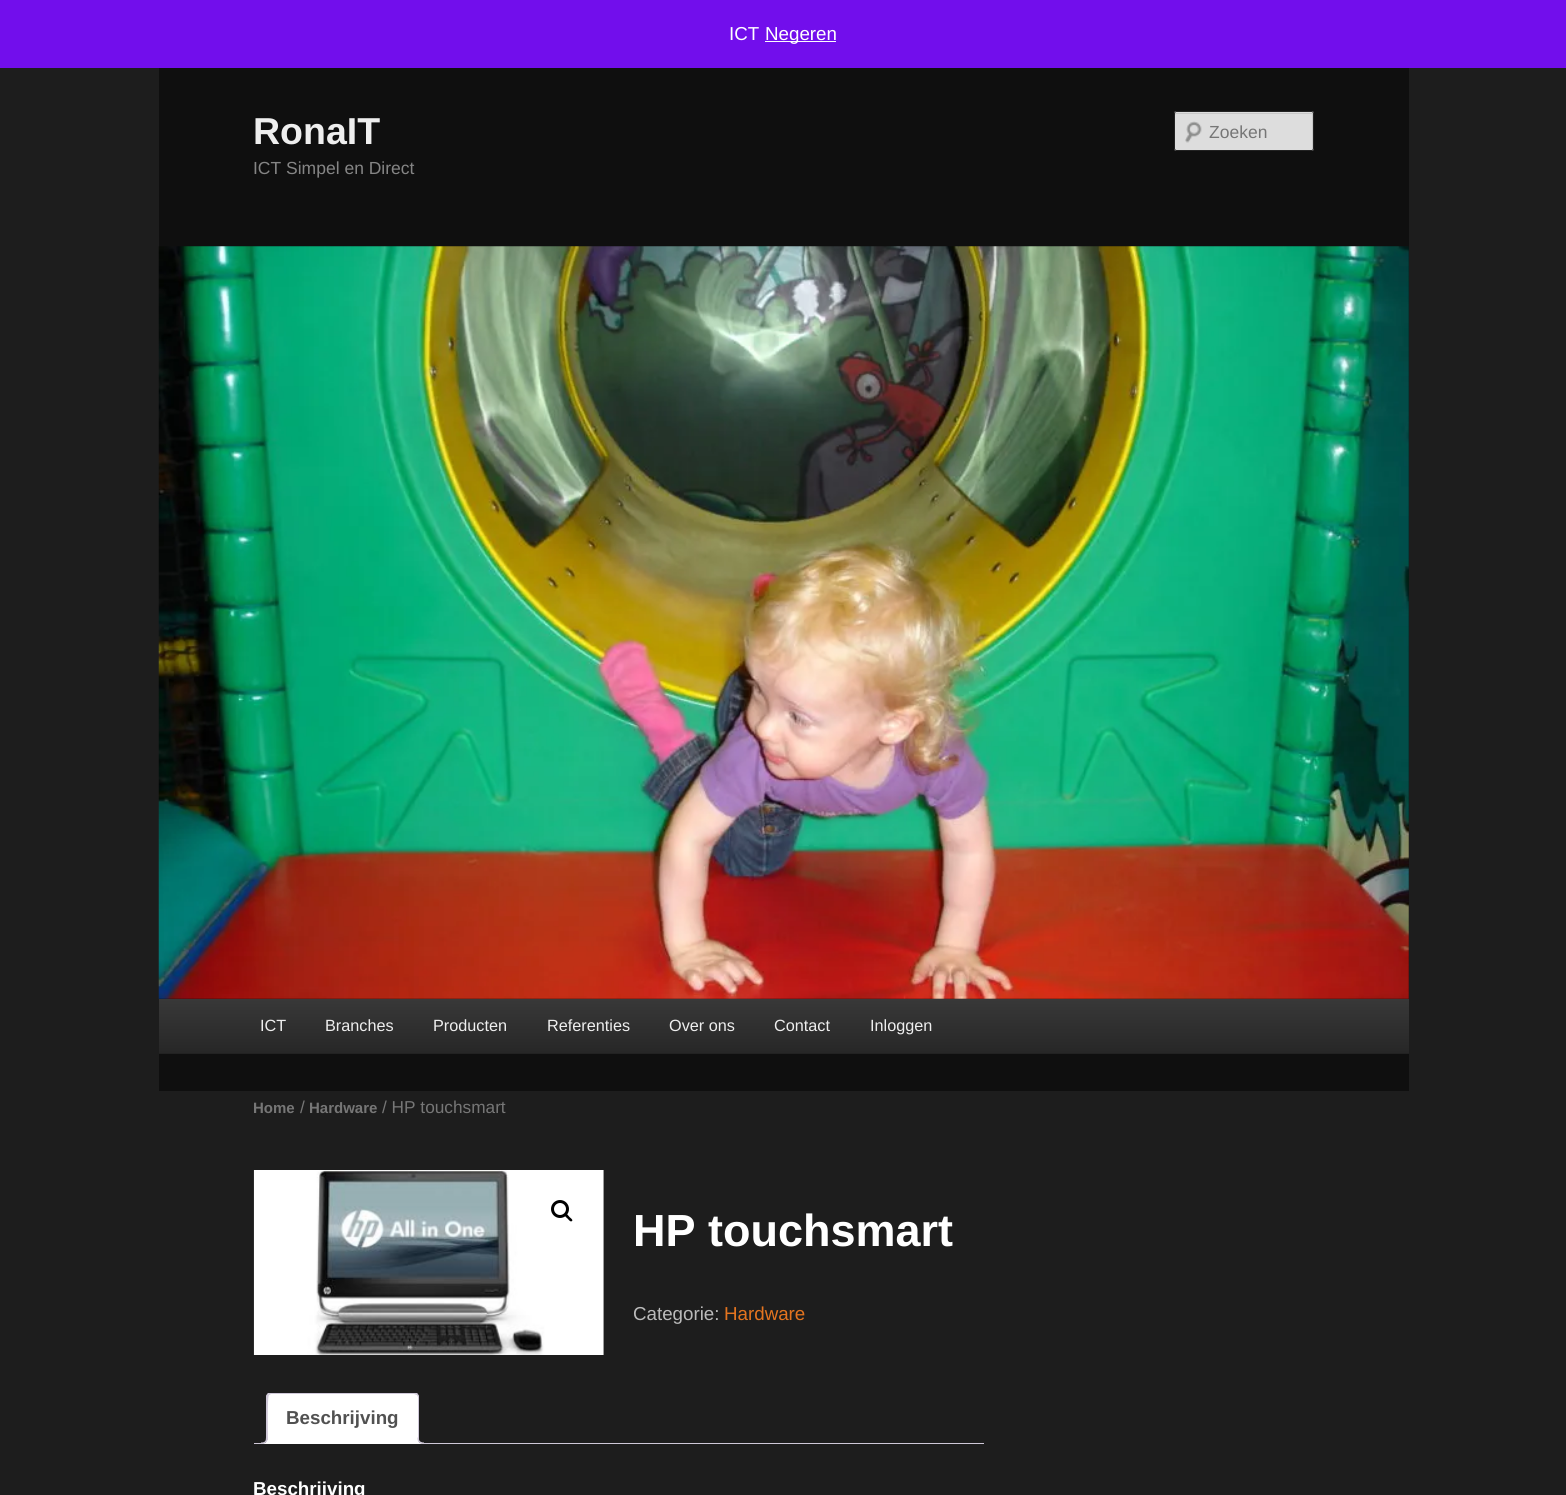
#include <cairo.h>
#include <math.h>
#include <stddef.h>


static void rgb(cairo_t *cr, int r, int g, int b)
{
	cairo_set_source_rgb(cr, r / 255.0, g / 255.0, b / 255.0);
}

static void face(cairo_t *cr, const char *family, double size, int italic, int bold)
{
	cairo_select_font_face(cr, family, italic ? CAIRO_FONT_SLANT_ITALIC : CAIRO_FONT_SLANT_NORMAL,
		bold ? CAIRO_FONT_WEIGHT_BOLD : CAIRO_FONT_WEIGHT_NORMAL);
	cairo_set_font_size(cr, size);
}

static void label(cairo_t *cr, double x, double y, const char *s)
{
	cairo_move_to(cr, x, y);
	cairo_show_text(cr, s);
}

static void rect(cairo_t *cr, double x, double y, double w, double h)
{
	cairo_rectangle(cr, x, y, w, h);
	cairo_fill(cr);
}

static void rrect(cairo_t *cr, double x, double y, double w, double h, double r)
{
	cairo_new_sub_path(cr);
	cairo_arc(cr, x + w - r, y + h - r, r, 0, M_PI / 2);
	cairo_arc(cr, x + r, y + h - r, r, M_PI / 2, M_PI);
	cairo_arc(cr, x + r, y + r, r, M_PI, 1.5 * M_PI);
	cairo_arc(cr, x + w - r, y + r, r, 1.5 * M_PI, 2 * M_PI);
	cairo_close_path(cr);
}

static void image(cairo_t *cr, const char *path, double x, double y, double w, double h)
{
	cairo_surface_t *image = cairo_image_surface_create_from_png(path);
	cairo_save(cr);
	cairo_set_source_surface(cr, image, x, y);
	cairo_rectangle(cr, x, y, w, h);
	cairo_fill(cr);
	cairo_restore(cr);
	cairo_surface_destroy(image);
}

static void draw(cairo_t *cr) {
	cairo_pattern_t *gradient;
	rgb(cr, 29, 29, 29);
	cairo_paint(cr);
	rgb(cr, 114, 14, 236);
	rect(cr, 0, 0, 1566, 68);
	face(cr, "Liberation Sans", 18.75, 0, 0);
	rgb(cr, 255, 255, 255);
	label(cr, 729, 40, "ICT");
	rgb(cr, 252, 251, 254);
	rect(cr, 765, 41, 71, 1);
	rgb(cr, 255, 255, 255);
	label(cr, 765, 40, "Negeren");
	rgb(cr, 15, 15, 15);
	rect(cr, 159, 68, 1250, 1023);
	face(cr, "Liberation Sans", 37.5, 0, 1);
	rgb(cr, 238, 238, 238);
	label(cr, 253, 144, "RonaIT");
	face(cr, "Liberation Sans", 17.5, 0, 0);
	rgb(cr, 133, 133, 133);
	label(cr, 253, 174, "ICT Simpel en Direct");
	rgb(cr, 221, 221, 221);
	rrect(cr, 1174, 111, 140, 40, 2.5);
	cairo_fill(cr);
	image(cr, "image0.png", 1185, 121, 17, 22);
	rgb(cr, 199, 199, 199);
	cairo_new_path(cr);
	cairo_move_to(cr, 1176, 114);
	cairo_line_to(cr, 1311, 114);
	cairo_curve_to(cr, 1312, 114, 1312, 114, 1312, 115);
	cairo_line_to(cr, 1312, 150);
	cairo_curve_to(cr, 1313, 150, 1313, 150, 1313, 149);
	cairo_line_to(cr, 1313, 114);
	cairo_curve_to(cr, 1313, 113, 1313, 113, 1312, 113);
	cairo_line_to(cr, 1176, 113);
	cairo_curve_to(cr, 1175, 113, 1175, 113, 1175, 114);
	cairo_line_to(cr, 1175, 115);
	cairo_close_path(cr);
	cairo_fill(cr);
	rrect(cr, 1174.5, 111.5, 139, 39, 2);
	rgb(cr, 34, 34, 34);
	cairo_set_line_width(cr, 1);
	cairo_stroke(cr);
	rgb(cr, 118, 118, 118);
	label(cr, 1209, 138, "Zoeken");
	image(cr, "image1.png", 158, 246, 1251, 753);
	gradient = cairo_pattern_create_linear(784, 999, 784, 1053);
	cairo_pattern_add_color_stop_rgba(gradient, 0, 0.22, 0.22, 0.22, 1);
	cairo_pattern_add_color_stop_rgba(gradient, 1, 0.153, 0.153, 0.153, 1);
	cairo_set_source(cr, gradient);
	cairo_pattern_destroy(gradient);
	rect(cr, 159, 999, 1250, 54);
	rgb(cr, 34, 34, 34);
	rect(cr, 159, 1053, 1250, 1);
	face(cr, "Liberation Sans", 16.25, 0, 0);
	rgb(cr, 238, 238, 238);
	label(cr, 260, 1031, "ICT");
	label(cr, 325, 1031, "Branches");
	label(cr, 433, 1031, "Producten");
	label(cr, 547, 1031, "Referenties");
	label(cr, 669, 1031, "Over ons");
	label(cr, 774, 1031, "Contact");
	label(cr, 870, 1031, "Inloggen");
	face(cr, "Liberation Sans", 15, 0, 1);
	rgb(cr, 118, 118, 118);
	label(cr, 253, 1113, "Home");
	face(cr, "Liberation Sans", 17.25, 0, 0);
	label(cr, 300, 1113, "/");
	face(cr, "Liberation Sans", 15, 0, 1);
	label(cr, 309, 1113, "Hardware");
	face(cr, "Liberation Sans", 17.25, 0, 0);
	label(cr, 382, 1113, "/ HP touchsmart");
	image(cr, "image2.png", 253, 1170, 351, 185);
	cairo_arc(cr, 560, 1209, 7.5, 0, 2 * M_PI);
	rgb(cr, 0, 0, 0);
	cairo_set_line_width(cr, 3);
	cairo_stroke(cr);
	cairo_new_path(cr);
	cairo_move_to(cr, 565, 1214);
	cairo_curve_to(cr, 566.5, 1212.5, 568.5, 1216, 569.5, 1217);
	cairo_curve_to(cr, 570, 1217.5, 573.5, 1220, 572, 1221);
	cairo_curve_to(cr, 570.5, 1222.5, 568.5, 1219.5, 567.5, 1218.5);
	cairo_curve_to(cr, 567, 1218, 563.5, 1215.5, 565, 1214);
	cairo_close_path(cr);
	cairo_fill(cr);
	face(cr, "Liberation Sans", 45, 0, 1);
	rgb(cr, 255, 255, 255);
	label(cr, 633, 1246, "HP touchsmart");
	face(cr, "Liberation Sans", 18.75, 0, 0);
	rgb(cr, 187, 187, 187);
	label(cr, 633, 1320, "Categorie:");
	rgb(cr, 228, 116, 31);
	label(cr, 724, 1320, "Hardware");
	rgb(cr, 207, 200, 216);
	rect(cr, 254, 1443, 730, 1);
	rgb(cr, 255, 255, 255);
	cairo_new_path(cr);
	cairo_move_to(cr, 271, 1393);
	cairo_line_to(cr, 414, 1393);
	cairo_curve_to(cr, 417, 1393, 419, 1395, 419, 1398);
	cairo_line_to(cr, 419, 1444);
	cairo_line_to(cr, 266, 1444);
	cairo_line_to(cr, 266, 1398);
	cairo_curve_to(cr, 266, 1395, 268, 1393, 271, 1393);
	cairo_close_path(cr);
	cairo_fill(cr);
	cairo_save(cr);
	cairo_rectangle(cr, 254, 1393, 730, 51);
	cairo_clip(cr);
	rgb(cr, 207, 200, 216);
	cairo_new_path(cr);
	cairo_move_to(cr, 271, 1394);
	cairo_line_to(cr, 269, 1395);
	cairo_line_to(cr, 267, 1394);
	cairo_line_to(cr, 269, 1392);
	cairo_line_to(cr, 392, 1392);
	cairo_curve_to(cr, 400, 1392, 412, 1387, 418, 1394);
	cairo_line_to(cr, 417, 1395);
	cairo_line_to(cr, 414, 1394);
	cairo_close_path(cr);
	cairo_fill(cr);
	cairo_restore(cr);
	rgb(cr, 207, 200, 216);
	cairo_new_path(cr);
	cairo_move_to(cr, 418, 1394);
	cairo_line_to(cr, 419, 1396);
	cairo_line_to(cr, 419, 1444);
	cairo_line_to(cr, 417, 1442);
	cairo_line_to(cr, 418, 1442);
	cairo_line_to(cr, 418, 1397);
	cairo_line_to(cr, 417, 1395);
	cairo_close_path(cr);
	cairo_fill(cr);
	rgb(cr, 255, 255, 255);
	cairo_new_path(cr);
	cairo_move_to(cr, 419, 1444);
	cairo_line_to(cr, 417, 1442);
	cairo_line_to(cr, 268, 1442);
	cairo_line_to(cr, 266, 1444);
	cairo_close_path(cr);
	cairo_fill(cr);
	rgb(cr, 207, 200, 216);
	cairo_new_path(cr);
	cairo_move_to(cr, 266, 1444);
	cairo_line_to(cr, 266, 1396);
	cairo_line_to(cr, 267, 1394);
	cairo_line_to(cr, 269, 1395);
	cairo_curve_to(cr, 267, 1397, 268, 1436, 268, 1442);
	cairo_close_path(cr);
	cairo_fill(cr);
	face(cr, "Liberation Sans", 18.75, 0, 1);
	rgb(cr, 81, 81, 81);
	label(cr, 286, 1424, "Beschrijving");
	cairo_save(cr);
	cairo_rectangle(cr, 254, 1393, 730, 51);
	cairo_clip(cr);
	rgb(cr, 255, 255, 255);
	cairo_new_path(cr);
	cairo_move_to(cr, 264, 1443.5);
	cairo_line_to(cr, 264, 1446);
	cairo_curve_to(cr, 268, 1446, 270, 1444, 270, 1440);
	cairo_line_to(cr, 267.5, 1440);
	cairo_curve_to(cr, 267, 1441.5, 265.5, 1443, 264, 1443.5);
	cairo_close_path(cr);
	cairo_fill(cr);
	cairo_restore(cr);
	rgb(cr, 207, 200, 216);
	cairo_set_fill_rule(cr, CAIRO_FILL_RULE_EVEN_ODD);
	cairo_new_path(cr);
	cairo_move_to(cr, 261, 1437.5);
	cairo_line_to(cr, 267.5, 1437.5);
	cairo_curve_to(cr, 267.5, 1442, 265.5, 1444, 261, 1444);
	cairo_close_path(cr);
	cairo_move_to(cr, 261, 1437.5);
	cairo_line_to(cr, 266, 1437.5);
	cairo_curve_to(cr, 266, 1441, 265, 1442.5, 261, 1442.5);
	cairo_close_path(cr);
	cairo_fill(cr);
	cairo_save(cr);
	cairo_set_fill_rule(cr, CAIRO_FILL_RULE_WINDING);
	cairo_rectangle(cr, 254, 1393, 730, 51);
	cairo_clip(cr);
	rgb(cr, 255, 255, 255);
	cairo_new_path(cr);
	cairo_move_to(cr, 415, 1440);
	cairo_curve_to(cr, 415, 1444, 417, 1446, 421, 1446);
	cairo_line_to(cr, 421, 1443.5);
	cairo_curve_to(cr, 419.5, 1443, 418, 1441.5, 417.5, 1440);
	cairo_close_path(cr);
	cairo_fill(cr);
	cairo_restore(cr);
	cairo_new_path(cr);
	cairo_move_to(cr, 417.5, 1437.5);
	cairo_line_to(cr, 424, 1437.5);
	cairo_line_to(cr, 424, 1444);
	cairo_curve_to(cr, 420.5, 1444, 417.5, 1442.5, 417.5, 1439);
	cairo_close_path(cr);
	cairo_move_to(cr, 419, 1437.5);
	cairo_line_to(cr, 424, 1437.5);
	cairo_line_to(cr, 424, 1442.5);
	cairo_curve_to(cr, 421.5, 1442.5, 419, 1441.5, 419, 1439);
	cairo_close_path(cr);
	cairo_fill(cr);
	rgb(cr, 255, 255, 255);
	label(cr, 253, 1495, "Beschrijving");
}

int main(void) {
	cairo_surface_t *surface = cairo_image_surface_create(CAIRO_FORMAT_RGB24, 1566, 1495);
	cairo_t *cr = cairo_create(surface);
	cairo_font_options_t *options = cairo_font_options_create();
	cairo_font_options_set_hint_metrics(options, CAIRO_HINT_METRICS_OFF);
	cairo_font_options_set_hint_style(options, CAIRO_HINT_STYLE_NONE);
	cairo_set_font_options(cr, options);
	cairo_set_miter_limit(cr, 4);
	draw(cr);
	cairo_surface_write_to_png(surface, "render.png");
	cairo_font_options_destroy(options);
	cairo_destroy(cr);
	cairo_surface_destroy(surface);
	return 0;
}
